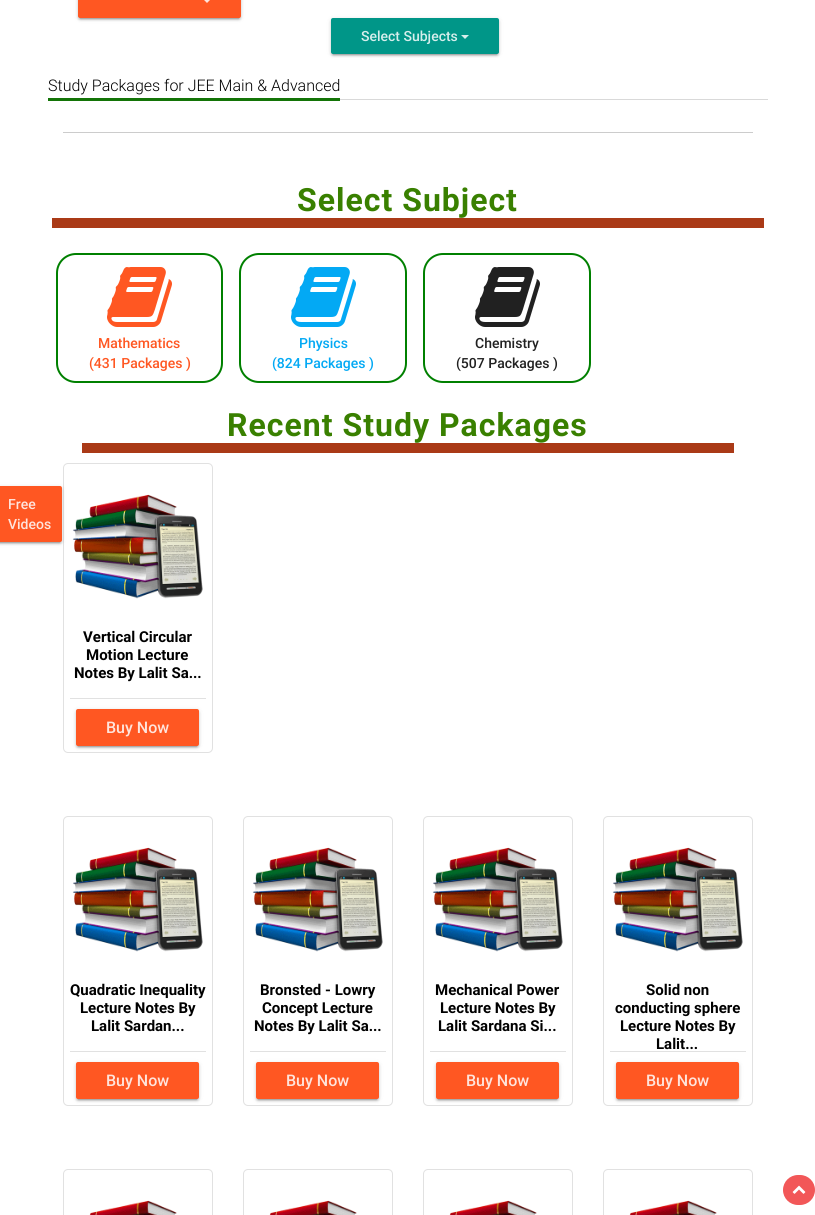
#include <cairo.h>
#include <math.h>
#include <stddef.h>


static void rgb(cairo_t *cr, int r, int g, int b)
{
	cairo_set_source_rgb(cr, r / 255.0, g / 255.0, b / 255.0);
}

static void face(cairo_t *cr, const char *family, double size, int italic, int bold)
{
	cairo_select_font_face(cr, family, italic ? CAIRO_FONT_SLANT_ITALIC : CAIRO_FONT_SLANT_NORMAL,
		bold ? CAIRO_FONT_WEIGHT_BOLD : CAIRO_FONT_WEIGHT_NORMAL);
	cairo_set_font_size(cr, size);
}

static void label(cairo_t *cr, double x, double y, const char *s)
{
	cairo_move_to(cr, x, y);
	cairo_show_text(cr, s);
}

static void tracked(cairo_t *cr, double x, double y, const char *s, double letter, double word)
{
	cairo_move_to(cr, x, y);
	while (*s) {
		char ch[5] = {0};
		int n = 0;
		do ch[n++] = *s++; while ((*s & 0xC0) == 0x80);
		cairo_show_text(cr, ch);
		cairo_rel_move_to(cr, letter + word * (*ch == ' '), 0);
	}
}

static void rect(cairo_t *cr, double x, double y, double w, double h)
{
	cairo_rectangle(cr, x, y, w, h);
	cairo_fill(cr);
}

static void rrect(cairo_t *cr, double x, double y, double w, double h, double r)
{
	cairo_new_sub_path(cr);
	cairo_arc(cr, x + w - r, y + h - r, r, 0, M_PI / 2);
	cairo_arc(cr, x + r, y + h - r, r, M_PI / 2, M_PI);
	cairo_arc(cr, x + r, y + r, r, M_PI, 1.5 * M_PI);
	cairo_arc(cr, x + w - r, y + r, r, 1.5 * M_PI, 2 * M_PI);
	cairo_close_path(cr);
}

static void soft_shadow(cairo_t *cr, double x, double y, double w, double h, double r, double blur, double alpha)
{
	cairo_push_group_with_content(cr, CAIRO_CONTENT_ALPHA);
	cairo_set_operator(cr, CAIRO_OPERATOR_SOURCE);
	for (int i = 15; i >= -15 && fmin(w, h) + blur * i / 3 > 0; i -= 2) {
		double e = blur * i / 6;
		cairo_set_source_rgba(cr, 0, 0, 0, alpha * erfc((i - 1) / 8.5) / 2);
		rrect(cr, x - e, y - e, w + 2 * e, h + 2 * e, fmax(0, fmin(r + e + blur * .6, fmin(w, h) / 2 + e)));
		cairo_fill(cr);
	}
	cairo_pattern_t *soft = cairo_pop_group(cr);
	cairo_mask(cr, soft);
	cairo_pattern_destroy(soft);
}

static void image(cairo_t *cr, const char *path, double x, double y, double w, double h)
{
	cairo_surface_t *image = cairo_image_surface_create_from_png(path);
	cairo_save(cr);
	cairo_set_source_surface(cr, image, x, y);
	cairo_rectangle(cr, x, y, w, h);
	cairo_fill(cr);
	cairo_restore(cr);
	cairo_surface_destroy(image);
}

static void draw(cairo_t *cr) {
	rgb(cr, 255, 255, 255);
	cairo_paint(cr);
	rrect(cr, 63.5, 463.5, 149, 289, 4.5);
	rgb(cr, 225, 225, 225);
	cairo_set_line_width(cr, 1);
	cairo_stroke(cr);
	rgb(cr, 0, 0, 0);
	soft_shadow(cr, -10, 487, 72, 56, 2, 2.5, 0.12);
	soft_shadow(cr, -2, 491, 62, 52, 0, 0.5, 0.2);
	soft_shadow(cr, -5, 488, 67, 56, 2, 1, 0.14);
	rgb(cr, 255, 87, 34);
	rrect(cr, -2, 486, 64, 56, 2);
	cairo_fill(cr);
	face(cr, "Roboto Medium", 14, 0, 0);
	rgb(cr, 255, 228, 220);
	label(cr, 8, 509, "Free");
	label(cr, 8, 529, "Videos");
	rgb(cr, 0, 0, 0);
	soft_shadow(cr, 78, -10, 163, 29, 2, 2.5, 0.12);
	soft_shadow(cr, 80, -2, 159, 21, 0, 0.5, 0.2);
	soft_shadow(cr, 78, -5, 163, 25, 2, 1, 0.14);
	rgb(cr, 255, 87, 34);
	rrect(cr, 78, -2, 163, 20, 2);
	cairo_fill(cr);
	rgb(cr, 255, 228, 220);
	cairo_new_path(cr);
	cairo_move_to(cr, 203, -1);
	cairo_line_to(cr, 211, -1);
	cairo_line_to(cr, 207, 3);
	cairo_close_path(cr);
	cairo_fill(cr);
	rgb(cr, 0, 0, 0);
	soft_shadow(cr, 331, 19, 168, 36, 2, 2.5, 0.12);
	soft_shadow(cr, 333, 23, 164, 32, 0, 0.5, 0.2);
	soft_shadow(cr, 331, 20, 168, 36, 2, 1, 0.14);
	rgb(cr, 0, 150, 136);
	rrect(cr, 331, 18, 168, 36, 2);
	cairo_fill(cr);
	rgb(cr, 214, 238, 236);
	label(cr, 361, 41, "Select Subjects");
	cairo_new_path(cr);
	cairo_move_to(cr, 461, 35);
	cairo_line_to(cr, 469, 35);
	cairo_line_to(cr, 465, 39);
	cairo_close_path(cr);
	cairo_fill(cr);
	rgb(cr, 217, 217, 217);
	rect(cr, 340, 99, 428, 1);
	rgb(cr, 19, 116, 7);
	rect(cr, 48, 98, 292, 3);
	face(cr, "Roboto Light", 16, 0, 0);
	rgb(cr, 0, 0, 0);
	label(cr, 48, 91, "Study Packages for JEE Main & Advanced");
	rgb(cr, 204, 204, 204);
	rect(cr, 63, 132, 690, 1);
	rgb(cr, 170, 58, 23);
	rect(cr, 52, 218, 712, 10);
	face(cr, "Roboto", 32, 0, 1);
	rgb(cr, 57, 128, 0);
	tracked(cr, 297, 211, "Select Subject", 1, 0);
	rrect(cr, 57, 254, 165, 128, 19);
	rgb(cr, 0, 128, 0);
	cairo_set_line_width(cr, 2);
	cairo_stroke(cr);
	image(cr, "image0.png", 107, 267, 65, 60);
	face(cr, "Roboto Medium", 14, 0, 0);
	rgb(cr, 255, 87, 34);
	label(cr, 98, 348, "Mathematics");
	label(cr, 89, 368, "(431 Packages )");
	rrect(cr, 240, 254, 166, 128, 19);
	rgb(cr, 0, 128, 0);
	cairo_stroke(cr);
	image(cr, "image1.png", 291, 267, 65, 60);
	rgb(cr, 3, 169, 244);
	label(cr, 299, 348, "Physics");
	label(cr, 272, 368, "(824 Packages )");
	rrect(cr, 424, 254, 166, 128, 19);
	rgb(cr, 0, 128, 0);
	cairo_stroke(cr);
	image(cr, "image2.png", 475, 267, 65, 60);
	rgb(cr, 33, 33, 33);
	label(cr, 475, 348, "Chemistry");
	label(cr, 456, 368, "(507 Packages )");
	rgb(cr, 170, 58, 23);
	rect(cr, 82, 443, 652, 10);
	face(cr, "Roboto", 32, 0, 1);
	rgb(cr, 57, 128, 0);
	tracked(cr, 227, 436, "Recent Study Packages", 1, 0);
	image(cr, "image3.png", 72, 494, 131, 105);
	face(cr, "Roboto", 15, 0, 1);
	rgb(cr, 0, 0, 0);
	label(cr, 83, 642, "Vertical Circular");
	label(cr, 86, 660, "Motion Lecture");
	label(cr, 74, 678, "Notes By Lalit Sa...");
	rgb(cr, 225, 225, 225);
	rect(cr, 70, 698, 136, 1);
	rgb(cr, 0, 0, 0);
	soft_shadow(cr, 76, 710, 123, 37, 2, 2.5, 0.12);
	soft_shadow(cr, 78, 714, 119, 33, 0, 0.5, 0.2);
	soft_shadow(cr, 76, 711, 123, 37, 2, 1, 0.14);
	rgb(cr, 255, 87, 34);
	rrect(cr, 76, 709, 123, 37, 2);
	cairo_fill(cr);
	face(cr, "Roboto Medium", 16, 0, 0);
	rgb(cr, 255, 228, 220);
	label(cr, 106, 733, "Buy Now");
	rrect(cr, 63.5, 816.5, 149, 289, 4.5);
	rgb(cr, 225, 225, 225);
	cairo_set_line_width(cr, 1);
	cairo_stroke(cr);
	image(cr, "image3.png", 72, 847, 131, 105);
	face(cr, "Roboto", 15, 0, 1);
	rgb(cr, 0, 0, 0);
	label(cr, 70, 995, "Quadratic Inequality");
	label(cr, 80, 1013, "Lecture Notes By");
	label(cr, 91, 1031, "Lalit Sardan...");
	rgb(cr, 225, 225, 225);
	rect(cr, 70, 1051, 136, 1);
	rgb(cr, 0, 0, 0);
	soft_shadow(cr, 76, 1063, 123, 37, 2, 2.5, 0.12);
	soft_shadow(cr, 78, 1067, 119, 33, 0, 0.5, 0.2);
	soft_shadow(cr, 76, 1064, 123, 37, 2, 1, 0.14);
	rgb(cr, 255, 87, 34);
	rrect(cr, 76, 1062, 123, 37, 2);
	cairo_fill(cr);
	face(cr, "Roboto Medium", 16, 0, 0);
	rgb(cr, 255, 228, 220);
	label(cr, 106, 1086, "Buy Now");
	rrect(cr, 243.5, 816.5, 149, 289, 4.5);
	rgb(cr, 225, 225, 225);
	cairo_stroke(cr);
	image(cr, "image4.png", 252, 847, 131, 105);
	face(cr, "Roboto", 15, 0, 1);
	rgb(cr, 0, 0, 0);
	label(cr, 260, 995, "Bronsted - Lowry");
	label(cr, 262, 1013, "Concept Lecture");
	label(cr, 254, 1031, "Notes By Lalit Sa...");
	rgb(cr, 225, 225, 225);
	rect(cr, 250, 1051, 136, 1);
	rgb(cr, 0, 0, 0);
	soft_shadow(cr, 256, 1063, 123, 37, 2, 2.5, 0.12);
	soft_shadow(cr, 258, 1067, 119, 33, 0, 0.5, 0.2);
	soft_shadow(cr, 256, 1064, 123, 37, 2, 1, 0.14);
	rgb(cr, 255, 87, 34);
	rrect(cr, 256, 1062, 123, 37, 2);
	cairo_fill(cr);
	face(cr, "Roboto Medium", 16, 0, 0);
	rgb(cr, 255, 228, 220);
	label(cr, 286, 1086, "Buy Now");
	rrect(cr, 423.5, 816.5, 149, 289, 4.5);
	rgb(cr, 225, 225, 225);
	cairo_stroke(cr);
	image(cr, "image5.png", 432, 847, 131, 105);
	face(cr, "Roboto", 15, 0, 1);
	rgb(cr, 0, 0, 0);
	label(cr, 435, 995, "Mechanical Power");
	label(cr, 440, 1013, "Lecture Notes By");
	label(cr, 438, 1031, "Lalit Sardana Si...");
	rgb(cr, 225, 225, 225);
	rect(cr, 430, 1051, 136, 1);
	rgb(cr, 0, 0, 0);
	soft_shadow(cr, 436, 1063, 123, 37, 2, 2.5, 0.12);
	soft_shadow(cr, 438, 1067, 119, 33, 0, 0.5, 0.2);
	soft_shadow(cr, 436, 1064, 123, 37, 2, 1, 0.14);
	rgb(cr, 255, 87, 34);
	rrect(cr, 436, 1062, 123, 37, 2);
	cairo_fill(cr);
	face(cr, "Roboto Medium", 16, 0, 0);
	rgb(cr, 255, 228, 220);
	label(cr, 466, 1086, "Buy Now");
	rrect(cr, 603.5, 816.5, 149, 289, 4.5);
	rgb(cr, 225, 225, 225);
	cairo_stroke(cr);
	image(cr, "image3.png", 612, 847, 131, 105);
	face(cr, "Roboto", 15, 0, 1);
	rgb(cr, 0, 0, 0);
	label(cr, 646, 995, "Solid non");
	label(cr, 615, 1013, "conducting sphere");
	label(cr, 620, 1031, "Lecture Notes By");
	label(cr, 656, 1049, "Lalit...");
	rgb(cr, 225, 225, 225);
	rect(cr, 610, 1051, 136, 1);
	rgb(cr, 0, 0, 0);
	soft_shadow(cr, 616, 1063, 123, 37, 2, 2.5, 0.12);
	soft_shadow(cr, 618, 1067, 119, 33, 0, 0.5, 0.2);
	soft_shadow(cr, 616, 1064, 123, 37, 2, 1, 0.14);
	rgb(cr, 255, 87, 34);
	rrect(cr, 616, 1062, 123, 37, 2);
	cairo_fill(cr);
	face(cr, "Roboto Medium", 16, 0, 0);
	rgb(cr, 255, 228, 220);
	label(cr, 646, 1086, "Buy Now");
	rrect(cr, 63.5, 1169.5, 149, 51, 4.5);
	rgb(cr, 225, 225, 225);
	cairo_stroke(cr);
	image(cr, "image6.png", 89, 1200, 88, 15);
	rrect(cr, 243.5, 1169.5, 149, 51, 4.5);
	cairo_stroke(cr);
	image(cr, "image6.png", 269, 1200, 88, 15);
	rrect(cr, 423.5, 1169.5, 149, 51, 4.5);
	cairo_stroke(cr);
	image(cr, "image7.png", 449, 1200, 88, 15);
	rrect(cr, 603.5, 1169.5, 149, 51, 4.5);
	cairo_stroke(cr);
	image(cr, "image6.png", 629, 1200, 88, 15);
	rgb(cr, 242, 87, 88);
	rrect(cr, 783, 1175, 32, 30, 15);
	cairo_fill(cr);
	image(cr, "image8.png", 792, 1185, 14, 9);
}

int main(void) {
	cairo_surface_t *surface = cairo_image_surface_create(CAIRO_FORMAT_RGB24, 815, 1215);
	cairo_t *cr = cairo_create(surface);
	cairo_font_options_t *options = cairo_font_options_create();
	cairo_font_options_set_hint_metrics(options, CAIRO_HINT_METRICS_OFF);
	cairo_font_options_set_hint_style(options, CAIRO_HINT_STYLE_NONE);
	cairo_set_font_options(cr, options);
	cairo_set_miter_limit(cr, 4);
	draw(cr);
	cairo_surface_write_to_png(surface, "render.png");
	cairo_font_options_destroy(options);
	cairo_destroy(cr);
	cairo_surface_destroy(surface);
	return 0;
}
